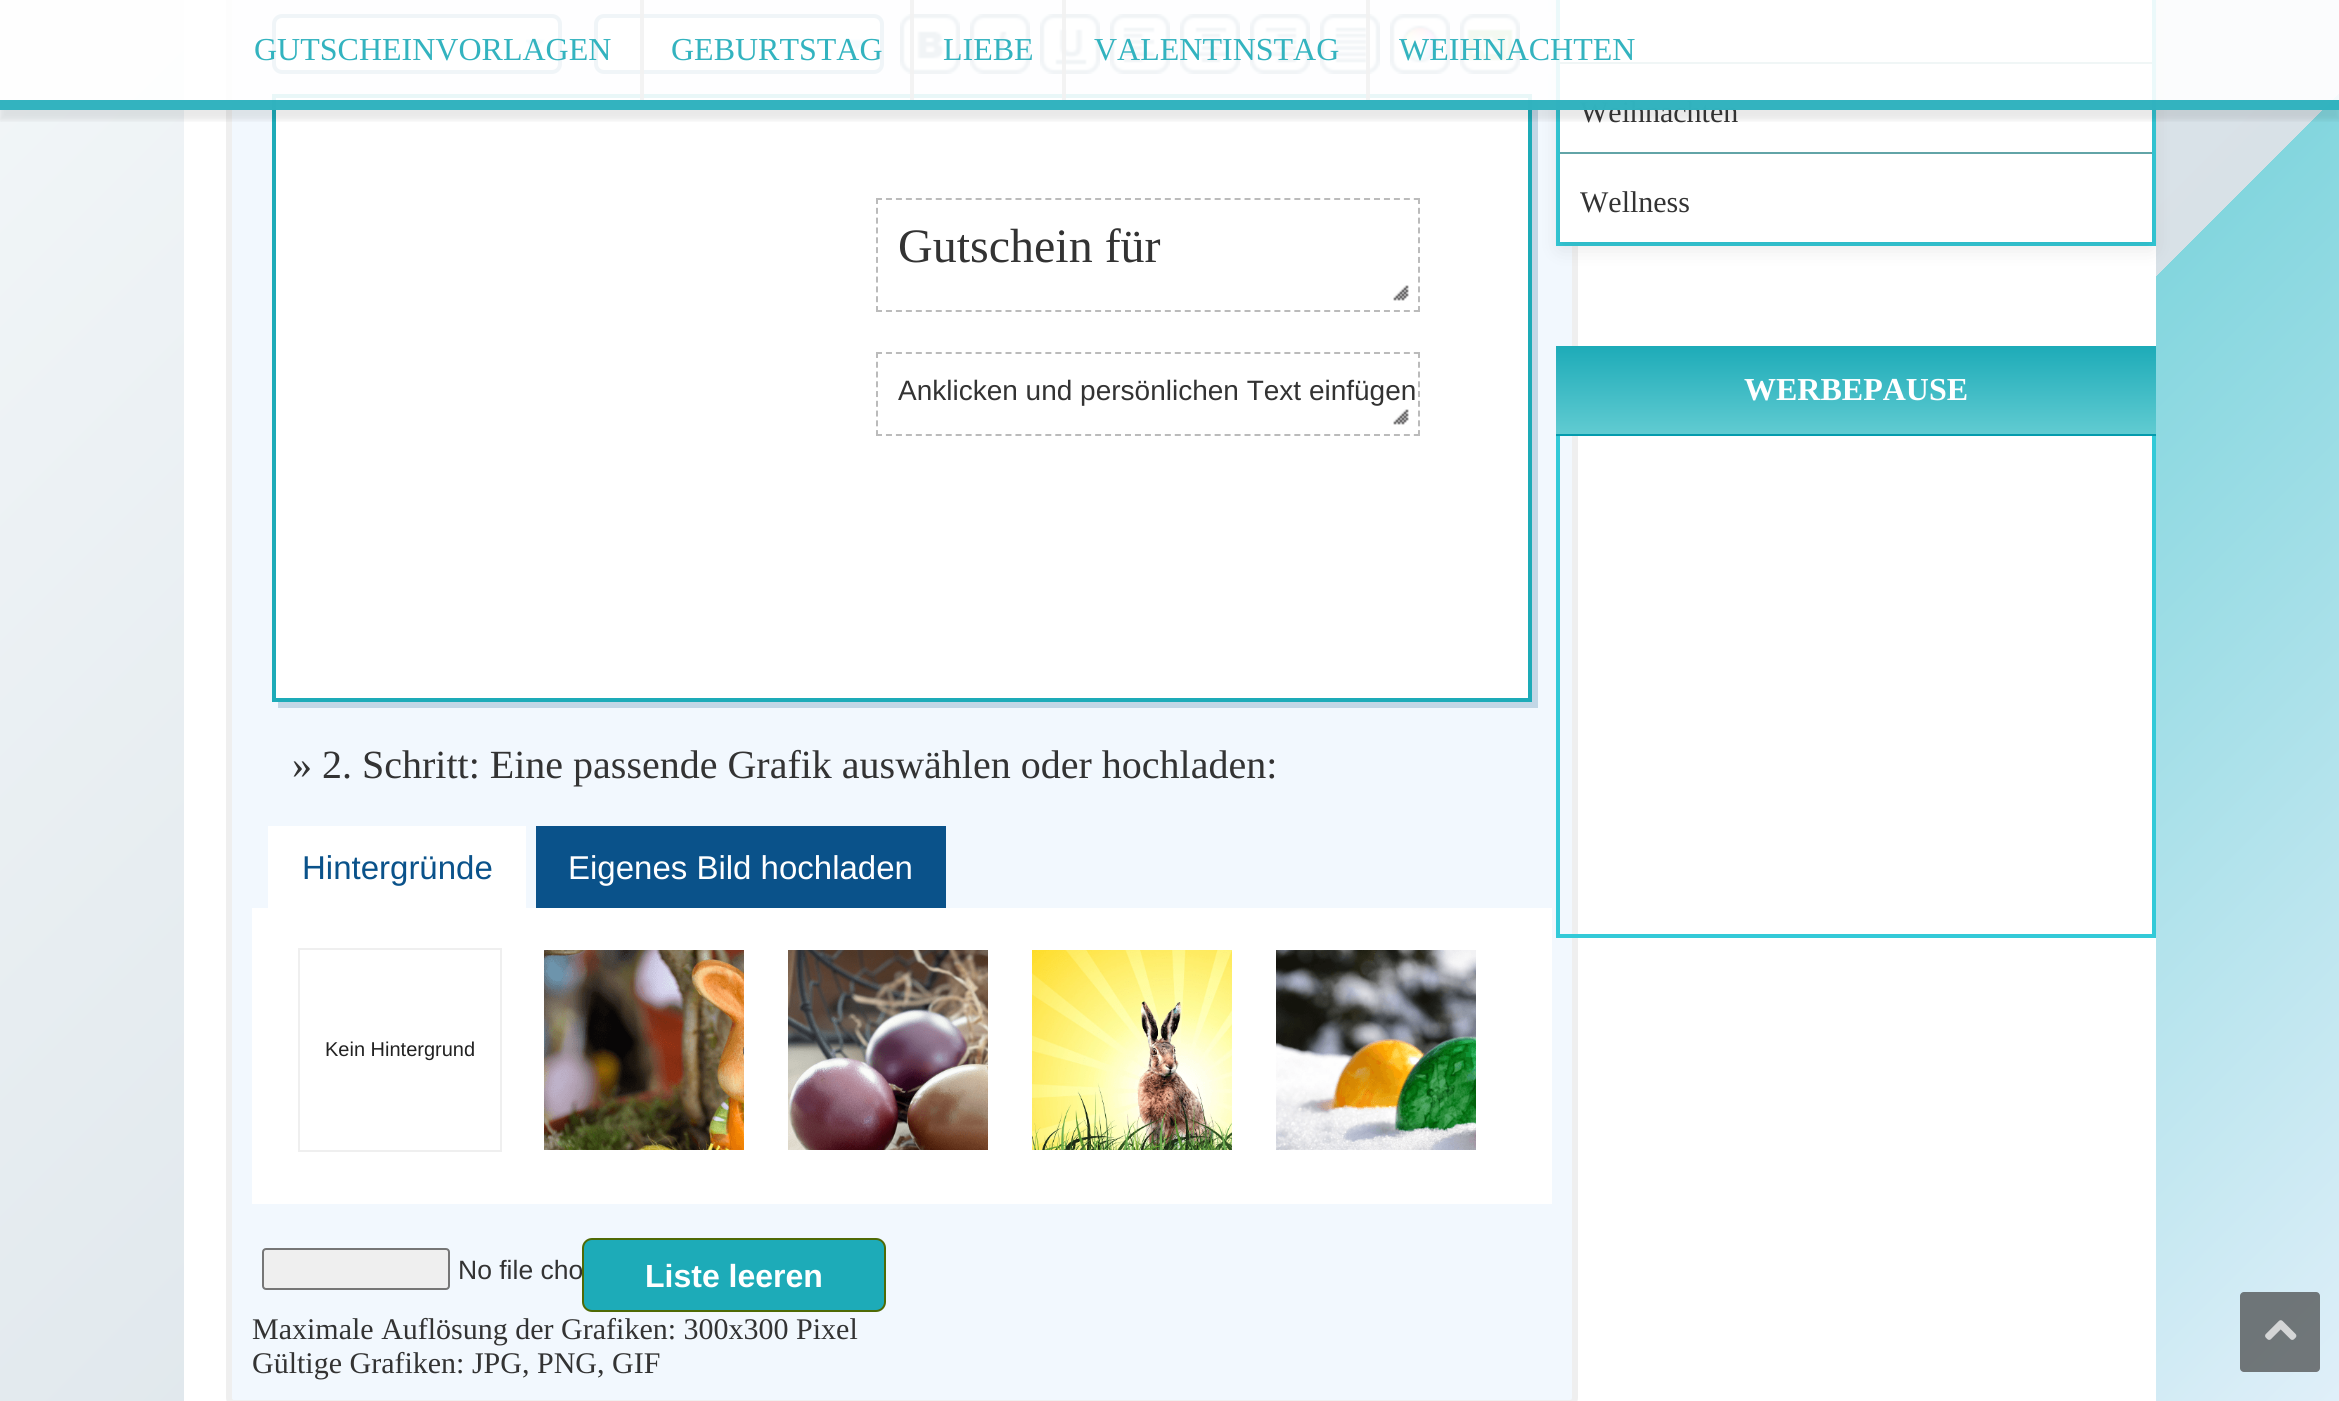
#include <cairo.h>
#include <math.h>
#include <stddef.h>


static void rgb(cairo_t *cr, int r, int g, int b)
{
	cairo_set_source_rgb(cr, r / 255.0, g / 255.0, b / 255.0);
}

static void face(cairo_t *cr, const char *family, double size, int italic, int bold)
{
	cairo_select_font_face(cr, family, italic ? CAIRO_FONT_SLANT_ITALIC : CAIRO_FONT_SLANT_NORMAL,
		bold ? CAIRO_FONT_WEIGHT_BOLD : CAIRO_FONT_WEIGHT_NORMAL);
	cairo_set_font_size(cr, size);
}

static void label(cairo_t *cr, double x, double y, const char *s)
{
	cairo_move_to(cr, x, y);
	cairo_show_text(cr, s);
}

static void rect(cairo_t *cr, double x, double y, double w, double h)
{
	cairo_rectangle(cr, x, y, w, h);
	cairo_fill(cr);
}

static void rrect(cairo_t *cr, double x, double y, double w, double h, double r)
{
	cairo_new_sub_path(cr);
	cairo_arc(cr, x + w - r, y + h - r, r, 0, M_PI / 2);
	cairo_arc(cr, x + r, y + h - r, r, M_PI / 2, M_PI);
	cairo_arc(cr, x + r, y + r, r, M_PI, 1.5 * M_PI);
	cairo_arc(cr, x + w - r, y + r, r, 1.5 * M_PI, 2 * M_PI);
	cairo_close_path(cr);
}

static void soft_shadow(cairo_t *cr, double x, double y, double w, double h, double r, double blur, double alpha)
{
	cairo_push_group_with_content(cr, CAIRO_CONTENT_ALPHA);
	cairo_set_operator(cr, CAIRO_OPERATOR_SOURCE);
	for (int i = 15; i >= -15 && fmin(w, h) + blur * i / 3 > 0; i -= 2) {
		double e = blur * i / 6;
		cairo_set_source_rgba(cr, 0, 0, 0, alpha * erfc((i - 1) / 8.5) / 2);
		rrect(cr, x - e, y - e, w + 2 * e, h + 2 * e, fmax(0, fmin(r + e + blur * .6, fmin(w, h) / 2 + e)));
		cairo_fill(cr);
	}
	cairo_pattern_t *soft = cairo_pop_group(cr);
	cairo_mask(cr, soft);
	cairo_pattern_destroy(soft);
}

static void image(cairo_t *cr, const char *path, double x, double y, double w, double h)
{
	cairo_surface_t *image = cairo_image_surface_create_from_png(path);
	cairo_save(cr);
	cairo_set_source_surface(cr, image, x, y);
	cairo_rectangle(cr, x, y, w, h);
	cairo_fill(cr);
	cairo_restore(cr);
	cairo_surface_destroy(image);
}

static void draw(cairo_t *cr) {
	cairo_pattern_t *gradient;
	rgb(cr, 255, 255, 255);
	cairo_paint(cr);
	gradient = cairo_pattern_create_linear(234, -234, 2106, 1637);
	cairo_pattern_add_color_stop_rgba(gradient, 0, 0.949, 0.965, 0.973, 1);
	cairo_pattern_add_color_stop_rgba(gradient, 0.65, 0.847, 0.882, 0.906, 1);
	cairo_pattern_add_color_stop_rgba(gradient, 0.65, 0.514, 0.839, 0.871, 1);
	cairo_pattern_add_color_stop_rgba(gradient, 1, 0.878, 0.937, 0.976, 1);
	cairo_set_source(cr, gradient);
	cairo_pattern_destroy(gradient);
	rect(cr, 0, 0, 2339, 1401);
	rgb(cr, 255, 255, 255);
	rect(cr, 184, 0, 1972, 1401);
	rgb(cr, 242, 248, 254);
	rrect(cr, 229, -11, 1346, 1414, 5);
	cairo_fill_preserve(cr);
	rgb(cr, 239, 239, 239);
	cairo_set_line_width(cr, 6);
	cairo_stroke(cr);
	rgb(cr, 51, 202, 216);
	rect(cr, 2152, 0, 4, 246);
	rect(cr, 1556, 242, 600, 4);
	rect(cr, 1556, 0, 4, 246);
	rgb(cr, 0, 0, 0);
	soft_shadow(cr, 1560, -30, 592, 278, 0, 10, 0.1);
	rgb(cr, 242, 248, 254);
	rect(cr, 1547, 12, 5, 62);
	rgb(cr, 250, 252, 255);
	rrect(cr, 274, 16, 286, 56, 8);
	cairo_fill_preserve(cr);
	rgb(cr, 103, 148, 184);
	cairo_set_line_width(cr, 4);
	cairo_stroke(cr);
	image(cr, "image0.png", 526, 39, 19, 12);
	rgb(cr, 250, 252, 255);
	rrect(cr, 596, 16, 286, 56, 8);
	cairo_fill_preserve(cr);
	rgb(cr, 103, 148, 184);
	cairo_stroke(cr);
	image(cr, "image0.png", 848, 39, 19, 12);
	image(cr, "image1.png", 900, 14, 60, 60);
	image(cr, "image2.png", 970, 14, 60, 60);
	image(cr, "image3.png", 1040, 14, 60, 60);
	image(cr, "image4.png", 1110, 14, 60, 60);
	image(cr, "image5.png", 1180, 14, 60, 60);
	image(cr, "image6.png", 1250, 14, 60, 60);
	image(cr, "image7.png", 1320, 14, 60, 60);
	image(cr, "image8.png", 1390, 14, 60, 60);
	image(cr, "image9.png", 1460, 14, 60, 60);
	rgb(cr, 194, 215, 230);
	cairo_new_path(cr);
	cairo_move_to(cr, 278, 702);
	cairo_line_to(cr, 278, 708);
	cairo_line_to(cr, 1538, 708);
	cairo_line_to(cr, 1538, 100);
	cairo_line_to(cr, 1532, 100);
	cairo_line_to(cr, 1532, 702);
	cairo_close_path(cr);
	cairo_fill(cr);
	cairo_rectangle(cr, 274, 96, 1256, 604);
	rgb(cr, 29, 171, 184);
	cairo_stroke(cr);
	rgb(cr, 255, 255, 255);
	rect(cr, 276, 98, 1252, 600);
	rect(cr, 1560, 0, 592, 242);
	rgb(cr, 98, 164, 167);
	rect(cr, 1560, 62, 592, 2);
	cairo_save(cr);
	cairo_rectangle(cr, 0, 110, 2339, 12);
	cairo_clip(cr);
	rgb(cr, 0, 0, 0);
	soft_shadow(cr, 0, 10, 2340, 110, 0, 3, 0.09);
	cairo_restore(cr);
	face(cr, "Liberation Serif", 30, 0, 0);
	rgb(cr, 51, 51, 51);
	label(cr, 1580, 122, "Weihnachten");
	cairo_set_source_rgba(cr, 1, 1, 1, 0.9);
	rect(cr, 0, 0, 2339, 110);
	cairo_set_source_rgba(cr, 0.114, 0.671, 0.722, 0.9);
	rect(cr, 0, 100, 2339, 10);
	face(cr, "Liberation Serif", 32, 0, 0);
	rgb(cr, 51, 179, 191);
	label(cr, 254, 60, "GUTSCHEINVORLAGEN");
	cairo_set_source_rgba(cr, 0.949, 0.949, 0.949, 0.9);
	rect(cr, 640, 0, 2, 100);
	rect(cr, 642, 0, 2, 100);
	rgb(cr, 51, 179, 191);
	label(cr, 671, 60, "GEBURTSTAG");
	cairo_set_source_rgba(cr, 0.949, 0.949, 0.949, 0.9);
	rect(cr, 910, 0, 2, 100);
	rect(cr, 912, 0, 2, 100);
	rgb(cr, 51, 179, 191);
	label(cr, 943, 60, "LIEBE");
	cairo_set_source_rgba(cr, 0.949, 0.949, 0.949, 0.9);
	rect(cr, 1062, 0, 2, 100);
	rect(cr, 1064, 0, 2, 100);
	rgb(cr, 51, 179, 191);
	label(cr, 1094, 60, "VALENTINSTAG");
	cairo_set_source_rgba(cr, 0.949, 0.949, 0.949, 0.9);
	rect(cr, 1366, 0, 2, 100);
	rect(cr, 1368, 0, 2, 100);
	rgb(cr, 51, 179, 191);
	label(cr, 1399, 60, "WEIHNACHTEN");
	cairo_new_path(cr);
	cairo_move_to(cr, 876, 199);
	cairo_line_to(cr, 1420, 199);
	rgb(cr, 187, 187, 187);
	cairo_set_line_width(cr, 2);
	cairo_set_dash(cr, (double[]){6, 3.96}, 2, 0);
	cairo_stroke(cr);
	cairo_new_path(cr);
	cairo_move_to(cr, 1419, 198);
	cairo_line_to(cr, 1419, 312);
	cairo_set_dash(cr, (double[]){6, 3.82}, 2, 0);
	cairo_stroke(cr);
	cairo_new_path(cr);
	cairo_move_to(cr, 876, 311);
	cairo_line_to(cr, 1420, 311);
	cairo_set_dash(cr, (double[]){6, 3.96}, 2, 0);
	cairo_stroke(cr);
	cairo_new_path(cr);
	cairo_move_to(cr, 877, 198);
	cairo_line_to(cr, 877, 312);
	cairo_set_dash(cr, (double[]){6, 3.82}, 2, 0);
	cairo_stroke(cr);
	face(cr, "Liberation Serif", 48, 0, 0);
	rgb(cr, 51, 51, 51);
	label(cr, 898, 262, "Gutschein für");
	image(cr, "image10.png", 1393, 285, 16, 16);
	cairo_new_path(cr);
	cairo_move_to(cr, 876, 353);
	cairo_line_to(cr, 1420, 353);
	rgb(cr, 187, 187, 187);
	cairo_set_dash(cr, (double[]){6, 3.96}, 2, 0);
	cairo_stroke(cr);
	cairo_new_path(cr);
	cairo_move_to(cr, 1419, 352);
	cairo_line_to(cr, 1419, 436);
	cairo_set_dash(cr, (double[]){6, 3.76}, 2, 0);
	cairo_stroke(cr);
	cairo_new_path(cr);
	cairo_move_to(cr, 876, 435);
	cairo_line_to(cr, 1420, 435);
	cairo_set_dash(cr, (double[]){6, 3.96}, 2, 0);
	cairo_stroke(cr);
	cairo_new_path(cr);
	cairo_move_to(cr, 877, 352);
	cairo_line_to(cr, 877, 436);
	cairo_set_dash(cr, (double[]){6, 3.76}, 2, 0);
	cairo_stroke(cr);
	face(cr, "Liberation Sans", 28, 0, 0);
	rgb(cr, 51, 51, 51);
	label(cr, 898, 400, "Anklicken und persönlichen Text einfügen");
	image(cr, "image10.png", 1393, 409, 16, 16);
	face(cr, "Liberation Serif", 40, 0, 0);
	label(cr, 292, 778, "» 2. Schritt: Eine passende Grafik auswählen oder hochladen:");
	rgb(cr, 255, 255, 255);
	rect(cr, 252, 908, 1300, 296);
	rect(cr, 268, 826, 258, 82);
	face(cr, "Liberation Sans", 33, 0, 0);
	rgb(cr, 10, 82, 138);
	label(cr, 302, 879, "Hintergründe");
	rect(cr, 536, 826, 410, 82);
	rgb(cr, 255, 255, 255);
	label(cr, 568, 879, "Eigenes Bild hochladen");
	cairo_rectangle(cr, 299, 949, 202, 202);
	rgb(cr, 239, 239, 239);
	cairo_set_dash(cr, NULL, 0, 0);
	cairo_stroke(cr);
	face(cr, "Liberation Sans", 20, 0, 0);
	rgb(cr, 34, 34, 34);
	label(cr, 325, 1056, "Kein Hintergrund");
	image(cr, "image11.png", 544, 950, 200, 200);
	image(cr, "image12.png", 788, 950, 200, 200);
	image(cr, "image13.png", 1032, 950, 200, 200);
	image(cr, "image14.png", 1276, 950, 200, 200);
	rgb(cr, 239, 239, 239);
	rrect(cr, 263, 1249, 186, 40, 3);
	cairo_fill_preserve(cr);
	rgb(cr, 118, 118, 118);
	cairo_stroke(cr);
	face(cr, "Liberation Sans", 26.5, 0, 0);
	rgb(cr, 51, 51, 51);
	label(cr, 458, 1279, "No file cho");
	rgb(cr, 29, 171, 184);
	rrect(cr, 583, 1239, 302, 72, 9);
	cairo_fill_preserve(cr);
	rgb(cr, 79, 106, 5);
	cairo_stroke(cr);
	face(cr, "Liberation Sans", 32, 0, 1);
	rgb(cr, 255, 255, 255);
	label(cr, 645, 1287, "Liste leeren");
	face(cr, "Liberation Serif", 30, 0, 0);
	rgb(cr, 51, 51, 51);
	label(cr, 252, 1339, "Maximale Auflösung der Grafiken: 300x300 Pixel");
	label(cr, 252, 1373, "Gültige Grafiken: JPG, PNG, GIF");
	rgb(cr, 98, 164, 167);
	rect(cr, 1560, 152, 592, 2);
	rgb(cr, 51, 51, 51);
	label(cr, 1580, 212, "Wellness");
	rgb(cr, 51, 202, 216);
	rect(cr, 2152, 434, 4, 504);
	rect(cr, 1556, 934, 600, 4);
	rect(cr, 1556, 434, 4, 504);
	rgb(cr, 4, 155, 173);
	rect(cr, 1556, 434, 600, 2);
	gradient = cairo_pattern_create_linear(1856, 346, 1856, 434);
	cairo_pattern_add_color_stop_rgba(gradient, 0, 0.114, 0.671, 0.722, 1);
	cairo_pattern_add_color_stop_rgba(gradient, 0.99, 0.376, 0.796, 0.82, 1);
	cairo_set_source(cr, gradient);
	cairo_pattern_destroy(gradient);
	rect(cr, 1556, 346, 600, 88);
	face(cr, "Liberation Serif", 32, 0, 1);
	rgb(cr, 255, 255, 255);
	label(cr, 1744, 400, "WERBEPAUSE");
	cairo_set_source_rgba(cr, 0.267, 0.267, 0.267, 0.7);
	rrect(cr, 2240, 1292, 80, 80, 4);
	cairo_fill(cr);
	image(cr, "image15.png", 2265, 1320, 32, 20);
}

int main(void) {
	cairo_surface_t *surface = cairo_image_surface_create(CAIRO_FORMAT_RGB24, 2339, 1401);
	cairo_t *cr = cairo_create(surface);
	cairo_font_options_t *options = cairo_font_options_create();
	cairo_font_options_set_hint_metrics(options, CAIRO_HINT_METRICS_OFF);
	cairo_font_options_set_hint_style(options, CAIRO_HINT_STYLE_NONE);
	cairo_set_font_options(cr, options);
	cairo_set_miter_limit(cr, 4);
	draw(cr);
	cairo_surface_write_to_png(surface, "render.png");
	cairo_font_options_destroy(options);
	cairo_destroy(cr);
	cairo_surface_destroy(surface);
	return 0;
}
